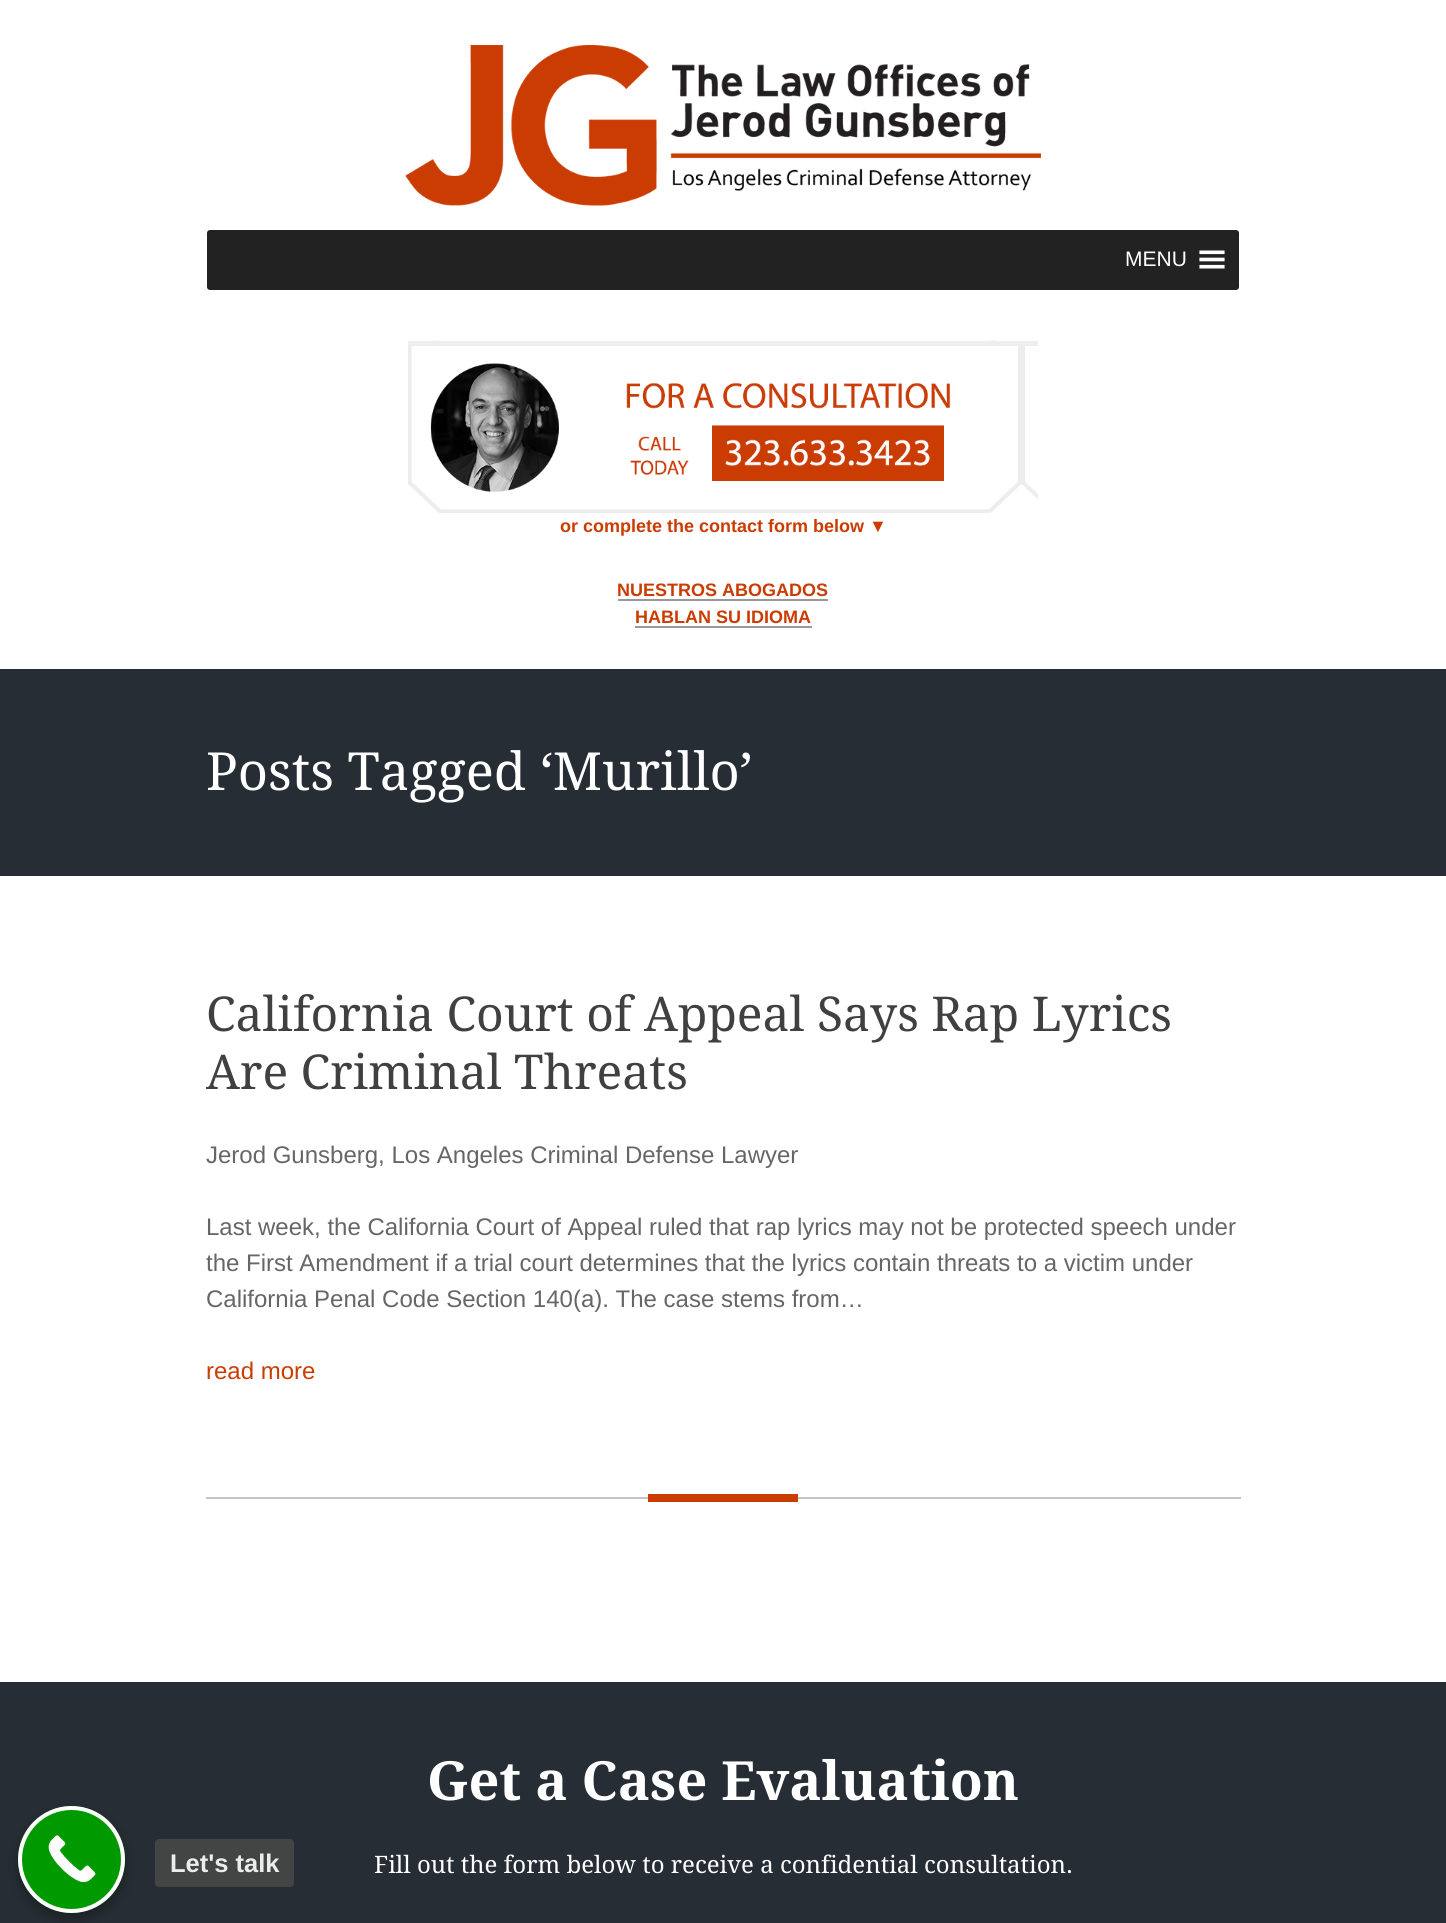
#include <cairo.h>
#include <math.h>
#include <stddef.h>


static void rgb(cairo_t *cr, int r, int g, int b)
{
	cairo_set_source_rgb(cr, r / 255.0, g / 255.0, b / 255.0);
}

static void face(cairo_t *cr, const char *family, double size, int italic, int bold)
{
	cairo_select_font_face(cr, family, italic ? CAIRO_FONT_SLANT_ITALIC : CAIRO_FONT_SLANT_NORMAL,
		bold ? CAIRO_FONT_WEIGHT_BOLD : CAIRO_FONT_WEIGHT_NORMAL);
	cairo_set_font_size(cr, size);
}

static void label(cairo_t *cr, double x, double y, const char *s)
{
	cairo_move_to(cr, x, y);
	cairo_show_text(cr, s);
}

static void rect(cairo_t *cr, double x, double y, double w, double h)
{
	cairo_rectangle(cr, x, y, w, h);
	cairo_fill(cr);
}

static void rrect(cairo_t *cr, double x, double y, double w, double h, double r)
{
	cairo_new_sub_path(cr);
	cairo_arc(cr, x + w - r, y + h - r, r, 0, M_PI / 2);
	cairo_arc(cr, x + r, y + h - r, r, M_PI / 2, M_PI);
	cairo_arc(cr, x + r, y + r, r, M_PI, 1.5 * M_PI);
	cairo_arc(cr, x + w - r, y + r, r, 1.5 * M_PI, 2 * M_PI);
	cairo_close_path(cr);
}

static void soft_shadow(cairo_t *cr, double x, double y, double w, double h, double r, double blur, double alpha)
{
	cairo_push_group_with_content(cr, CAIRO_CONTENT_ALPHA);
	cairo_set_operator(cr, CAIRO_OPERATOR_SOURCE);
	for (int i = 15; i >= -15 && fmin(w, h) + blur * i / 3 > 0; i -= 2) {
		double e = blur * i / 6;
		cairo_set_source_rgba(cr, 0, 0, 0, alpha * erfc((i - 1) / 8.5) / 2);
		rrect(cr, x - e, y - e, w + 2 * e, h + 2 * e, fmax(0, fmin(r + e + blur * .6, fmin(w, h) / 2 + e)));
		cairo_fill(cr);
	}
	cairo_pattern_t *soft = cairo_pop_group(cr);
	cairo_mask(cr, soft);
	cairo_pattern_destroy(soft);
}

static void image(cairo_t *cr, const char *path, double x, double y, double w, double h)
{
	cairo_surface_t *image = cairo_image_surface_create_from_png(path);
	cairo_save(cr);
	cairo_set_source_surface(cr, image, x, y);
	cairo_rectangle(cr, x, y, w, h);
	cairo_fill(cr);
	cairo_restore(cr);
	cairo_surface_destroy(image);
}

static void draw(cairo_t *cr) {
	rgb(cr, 255, 255, 255);
	cairo_paint(cr);
	image(cr, "image0.png", 405, 45, 636, 161);
	rgb(cr, 34, 34, 34);
	rrect(cr, 207, 230, 1032, 60, 3);
	cairo_fill(cr);
	face(cr, "Liberation Sans", 21, 0, 0);
	rgb(cr, 255, 255, 255);
	label(cr, 1125, 266, "MENU");
	image(cr, "image1.png", 1199, 250, 26, 19);
	image(cr, "image2.png", 408, 340, 630, 173);
	rgb(cr, 238, 238, 238);
	rect(cr, 408, 341, 630, 5);
	face(cr, "Liberation Sans", 18, 0, 1);
	rgb(cr, 203, 60, 2);
	label(cr, 560, 532, "or complete the contact form below ▼");
	label(cr, 617, 596, "NUESTROS ABOGADOS");
	rgb(cr, 153, 153, 153);
	rect(cr, 618, 599, 210, 2);
	rgb(cr, 203, 60, 2);
	label(cr, 635, 623, "HABLAN SU IDIOMA");
	rgb(cr, 153, 153, 153);
	rect(cr, 635, 626, 177, 2);
	rgb(cr, 39, 45, 52);
	rect(cr, 0, 669, 1446, 207);
	face(cr, "Droid Serif", 52.5, 0, 0);
	rgb(cr, 255, 255, 255);
	label(cr, 206, 790, "Posts Tagged ‘Murillo’");
	rgb(cr, 197, 197, 197);
	rect(cr, 206, 1497, 1035, 2);
	face(cr, "Droid Serif", 48, 0, 0);
	rgb(cr, 64, 64, 64);
	label(cr, 206, 1031, "California Court of Appeal Says Rap Lyrics");
	label(cr, 206, 1089, "Are Criminal Threats");
	face(cr, "Liberation Sans", 24, 0, 0);
	rgb(cr, 102, 102, 102);
	label(cr, 206, 1163, "Jerod Gunsberg, Los Angeles Criminal Defense Lawyer");
	label(cr, 206, 1235, "Last week, the California Court of Appeal ruled that rap lyrics may not be protected speech under");
	label(cr, 206, 1271, "the First Amendment if a trial court determines that the lyrics contain threats to a victim under");
	label(cr, 206, 1307, "California Penal Code Section 140(a). The case stems from…");
	rgb(cr, 203, 60, 2);
	label(cr, 206, 1379, "read more");
	rect(cr, 648, 1494, 150, 8);
	rgb(cr, 39, 45, 52);
	rect(cr, 0, 1682, 1446, 241);
	rgb(cr, 0, 0, 0);
	soft_shadow(cr, 18, 1812, 107, 107, 53.5, 6, 0.3);
	rgb(cr, 0, 153, 0);
	cairo_arc(cr, 71.5, 1859.5, 53.5, 0, 2 * M_PI);
	cairo_fill(cr);
	image(cr, "image3.png", 48, 1835, 48, 48);
	cairo_arc(cr, 71.5, 1859.5, 51.5, 0, 2 * M_PI);
	rgb(cr, 255, 255, 255);
	cairo_set_line_width(cr, 4);
	cairo_stroke(cr);
	rgb(cr, 67, 68, 68);
	rrect(cr, 155, 1839, 139, 48, 4);
	cairo_fill(cr);
	face(cr, "Liberation Sans", 25.5, 0, 1);
	rgb(cr, 236, 236, 236);
	label(cr, 170, 1872, "Let's talk");
	face(cr, "Droid Serif", 54, 0, 1);
	rgb(cr, 255, 255, 255);
	label(cr, 427, 1800, "Get a Case Evaluation");
	face(cr, "Droid Serif", 24, 0, 0);
	label(cr, 374, 1873, "Fill out the form below to receive a confidential consultation.");
}

int main(void) {
	cairo_surface_t *surface = cairo_image_surface_create(CAIRO_FORMAT_RGB24, 1446, 1923);
	cairo_t *cr = cairo_create(surface);
	cairo_font_options_t *options = cairo_font_options_create();
	cairo_font_options_set_hint_metrics(options, CAIRO_HINT_METRICS_OFF);
	cairo_font_options_set_hint_style(options, CAIRO_HINT_STYLE_NONE);
	cairo_set_font_options(cr, options);
	cairo_set_miter_limit(cr, 4);
	draw(cr);
	cairo_surface_write_to_png(surface, "render.png");
	cairo_font_options_destroy(options);
	cairo_destroy(cr);
	cairo_surface_destroy(surface);
	return 0;
}
